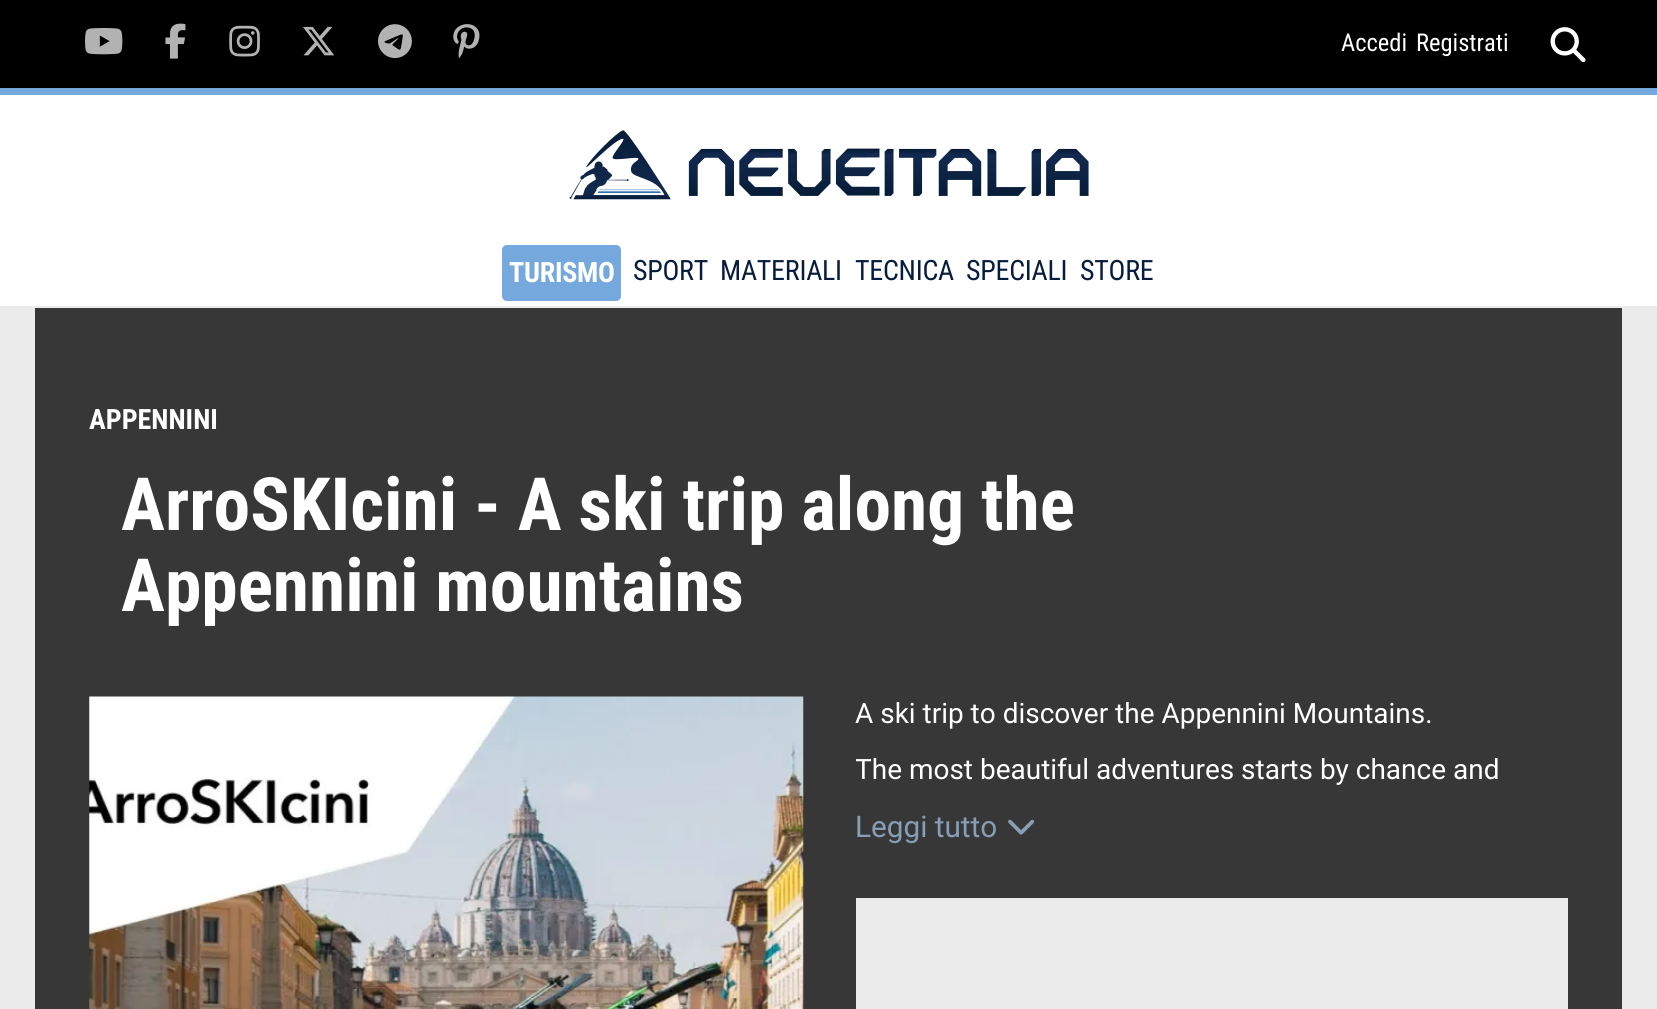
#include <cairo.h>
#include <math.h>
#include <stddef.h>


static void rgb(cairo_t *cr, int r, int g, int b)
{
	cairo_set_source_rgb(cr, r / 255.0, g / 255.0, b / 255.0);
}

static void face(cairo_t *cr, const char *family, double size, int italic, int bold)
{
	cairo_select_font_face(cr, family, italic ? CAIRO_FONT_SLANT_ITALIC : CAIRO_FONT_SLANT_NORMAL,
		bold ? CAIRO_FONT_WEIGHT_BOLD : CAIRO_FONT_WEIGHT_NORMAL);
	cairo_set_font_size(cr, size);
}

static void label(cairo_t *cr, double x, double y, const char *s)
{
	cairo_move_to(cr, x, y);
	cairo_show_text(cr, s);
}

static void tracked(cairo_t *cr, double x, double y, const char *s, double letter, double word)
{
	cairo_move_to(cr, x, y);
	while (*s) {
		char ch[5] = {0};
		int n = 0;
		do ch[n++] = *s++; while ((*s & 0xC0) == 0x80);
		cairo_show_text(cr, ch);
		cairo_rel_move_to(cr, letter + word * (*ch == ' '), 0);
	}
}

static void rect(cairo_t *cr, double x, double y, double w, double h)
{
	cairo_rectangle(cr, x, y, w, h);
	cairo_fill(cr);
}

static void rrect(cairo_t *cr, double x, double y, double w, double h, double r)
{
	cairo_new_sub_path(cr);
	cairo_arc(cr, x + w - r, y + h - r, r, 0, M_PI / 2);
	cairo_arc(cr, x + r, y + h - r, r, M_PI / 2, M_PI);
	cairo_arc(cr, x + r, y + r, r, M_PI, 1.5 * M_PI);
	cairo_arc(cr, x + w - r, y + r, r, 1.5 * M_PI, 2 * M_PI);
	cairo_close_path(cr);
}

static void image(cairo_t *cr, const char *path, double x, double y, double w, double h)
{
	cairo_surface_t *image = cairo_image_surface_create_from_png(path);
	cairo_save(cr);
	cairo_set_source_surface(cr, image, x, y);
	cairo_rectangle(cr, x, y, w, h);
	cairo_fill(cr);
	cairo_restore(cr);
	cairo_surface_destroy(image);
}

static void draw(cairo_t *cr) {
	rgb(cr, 235, 235, 235);
	cairo_paint(cr);
	rgb(cr, 0, 0, 0);
	rect(cr, 0, 0, 1657, 88);
	rgb(cr, 117, 168, 221);
	rect(cr, 0, 88, 1657, 7);
	image(cr, "image0.png", 85, 28, 38, 27);
	image(cr, "image1.png", 165, 23, 21, 36);
	image(cr, "image2.png", 229, 25, 31, 32);
	image(cr, "image3.png", 303, 26, 32, 30);
	image(cr, "image4.png", 378, 24, 34, 35);
	image(cr, "image5.png", 453, 24, 27, 35);
	face(cr, "Roboto Condensed", 24.5, 0, 0);
	rgb(cr, 255, 255, 255);
	label(cr, 1341, 51, "Accedi");
	label(cr, 1416, 51, "Registrati");
	image(cr, "image6.png", 1550, 27, 36, 36);
	rect(cr, 0, 95, 1657, 211);
	image(cr, "image7.png", 569, 130, 520, 70);
	rgb(cr, 117, 168, 221);
	rrect(cr, 502, 245, 119, 56, 5);
	cairo_fill(cr);
	face(cr, "Roboto Condensed", 28, 0, 1);
	rgb(cr, 255, 255, 255);
	tracked(cr, 509, 282, "TURISMO", -0.25, 0);
	face(cr, "Roboto Condensed", 28, 0, 0);
	rgb(cr, 7, 29, 61);
	tracked(cr, 633, 280, "SPORT", -0.25, 0);
	tracked(cr, 720, 280, "MATERIALI", -0.25, 0);
	tracked(cr, 855, 280, "TECNICA", -0.25, 0);
	tracked(cr, 966, 280, "SPECIALI", -0.25, 0);
	tracked(cr, 1080, 280, "STORE", -0.25, 0);
	rgb(cr, 55, 55, 55);
	rect(cr, 35, 308, 1587, 701);
	face(cr, "Roboto Condensed", 28, 0, 1);
	rgb(cr, 255, 255, 255);
	label(cr, 89, 429, "APPENNINI");
	face(cr, "Roboto Condensed", 73.5, 0, 1);
	label(cr, 121, 530, "ArroSKIcini - A ski trip along the");
	label(cr, 121, 611, "Appennini mountains");
	image(cr, "image8.png", 89, 696, 715, 313);
	face(cr, "Roboto", 28, 0, 0);
	label(cr, 855, 723, "A ski trip to discover the Appennini Mountains.");
	cairo_save(cr);
	cairo_rectangle(cr, 856, 679, 712, 109);
	cairo_clip(cr);
	label(cr, 855, 779, "The most beautiful adventures starts by chance and");
	cairo_restore(cr);
	face(cr, "Roboto", 29.75, 0, 0);
	rgb(cr, 135, 158, 182);
	label(cr, 855, 837, "Leggi tutto");
	image(cr, "image9.png", 1008, 819, 27, 16);
	rgb(cr, 235, 235, 235);
	rect(cr, 856, 898, 712, 111);
}

int main(void) {
	cairo_surface_t *surface = cairo_image_surface_create(CAIRO_FORMAT_RGB24, 1657, 1009);
	cairo_t *cr = cairo_create(surface);
	cairo_font_options_t *options = cairo_font_options_create();
	cairo_font_options_set_hint_metrics(options, CAIRO_HINT_METRICS_OFF);
	cairo_font_options_set_hint_style(options, CAIRO_HINT_STYLE_NONE);
	cairo_set_font_options(cr, options);
	cairo_set_miter_limit(cr, 4);
	draw(cr);
	cairo_surface_write_to_png(surface, "render.png");
	cairo_font_options_destroy(options);
	cairo_destroy(cr);
	cairo_surface_destroy(surface);
	return 0;
}
